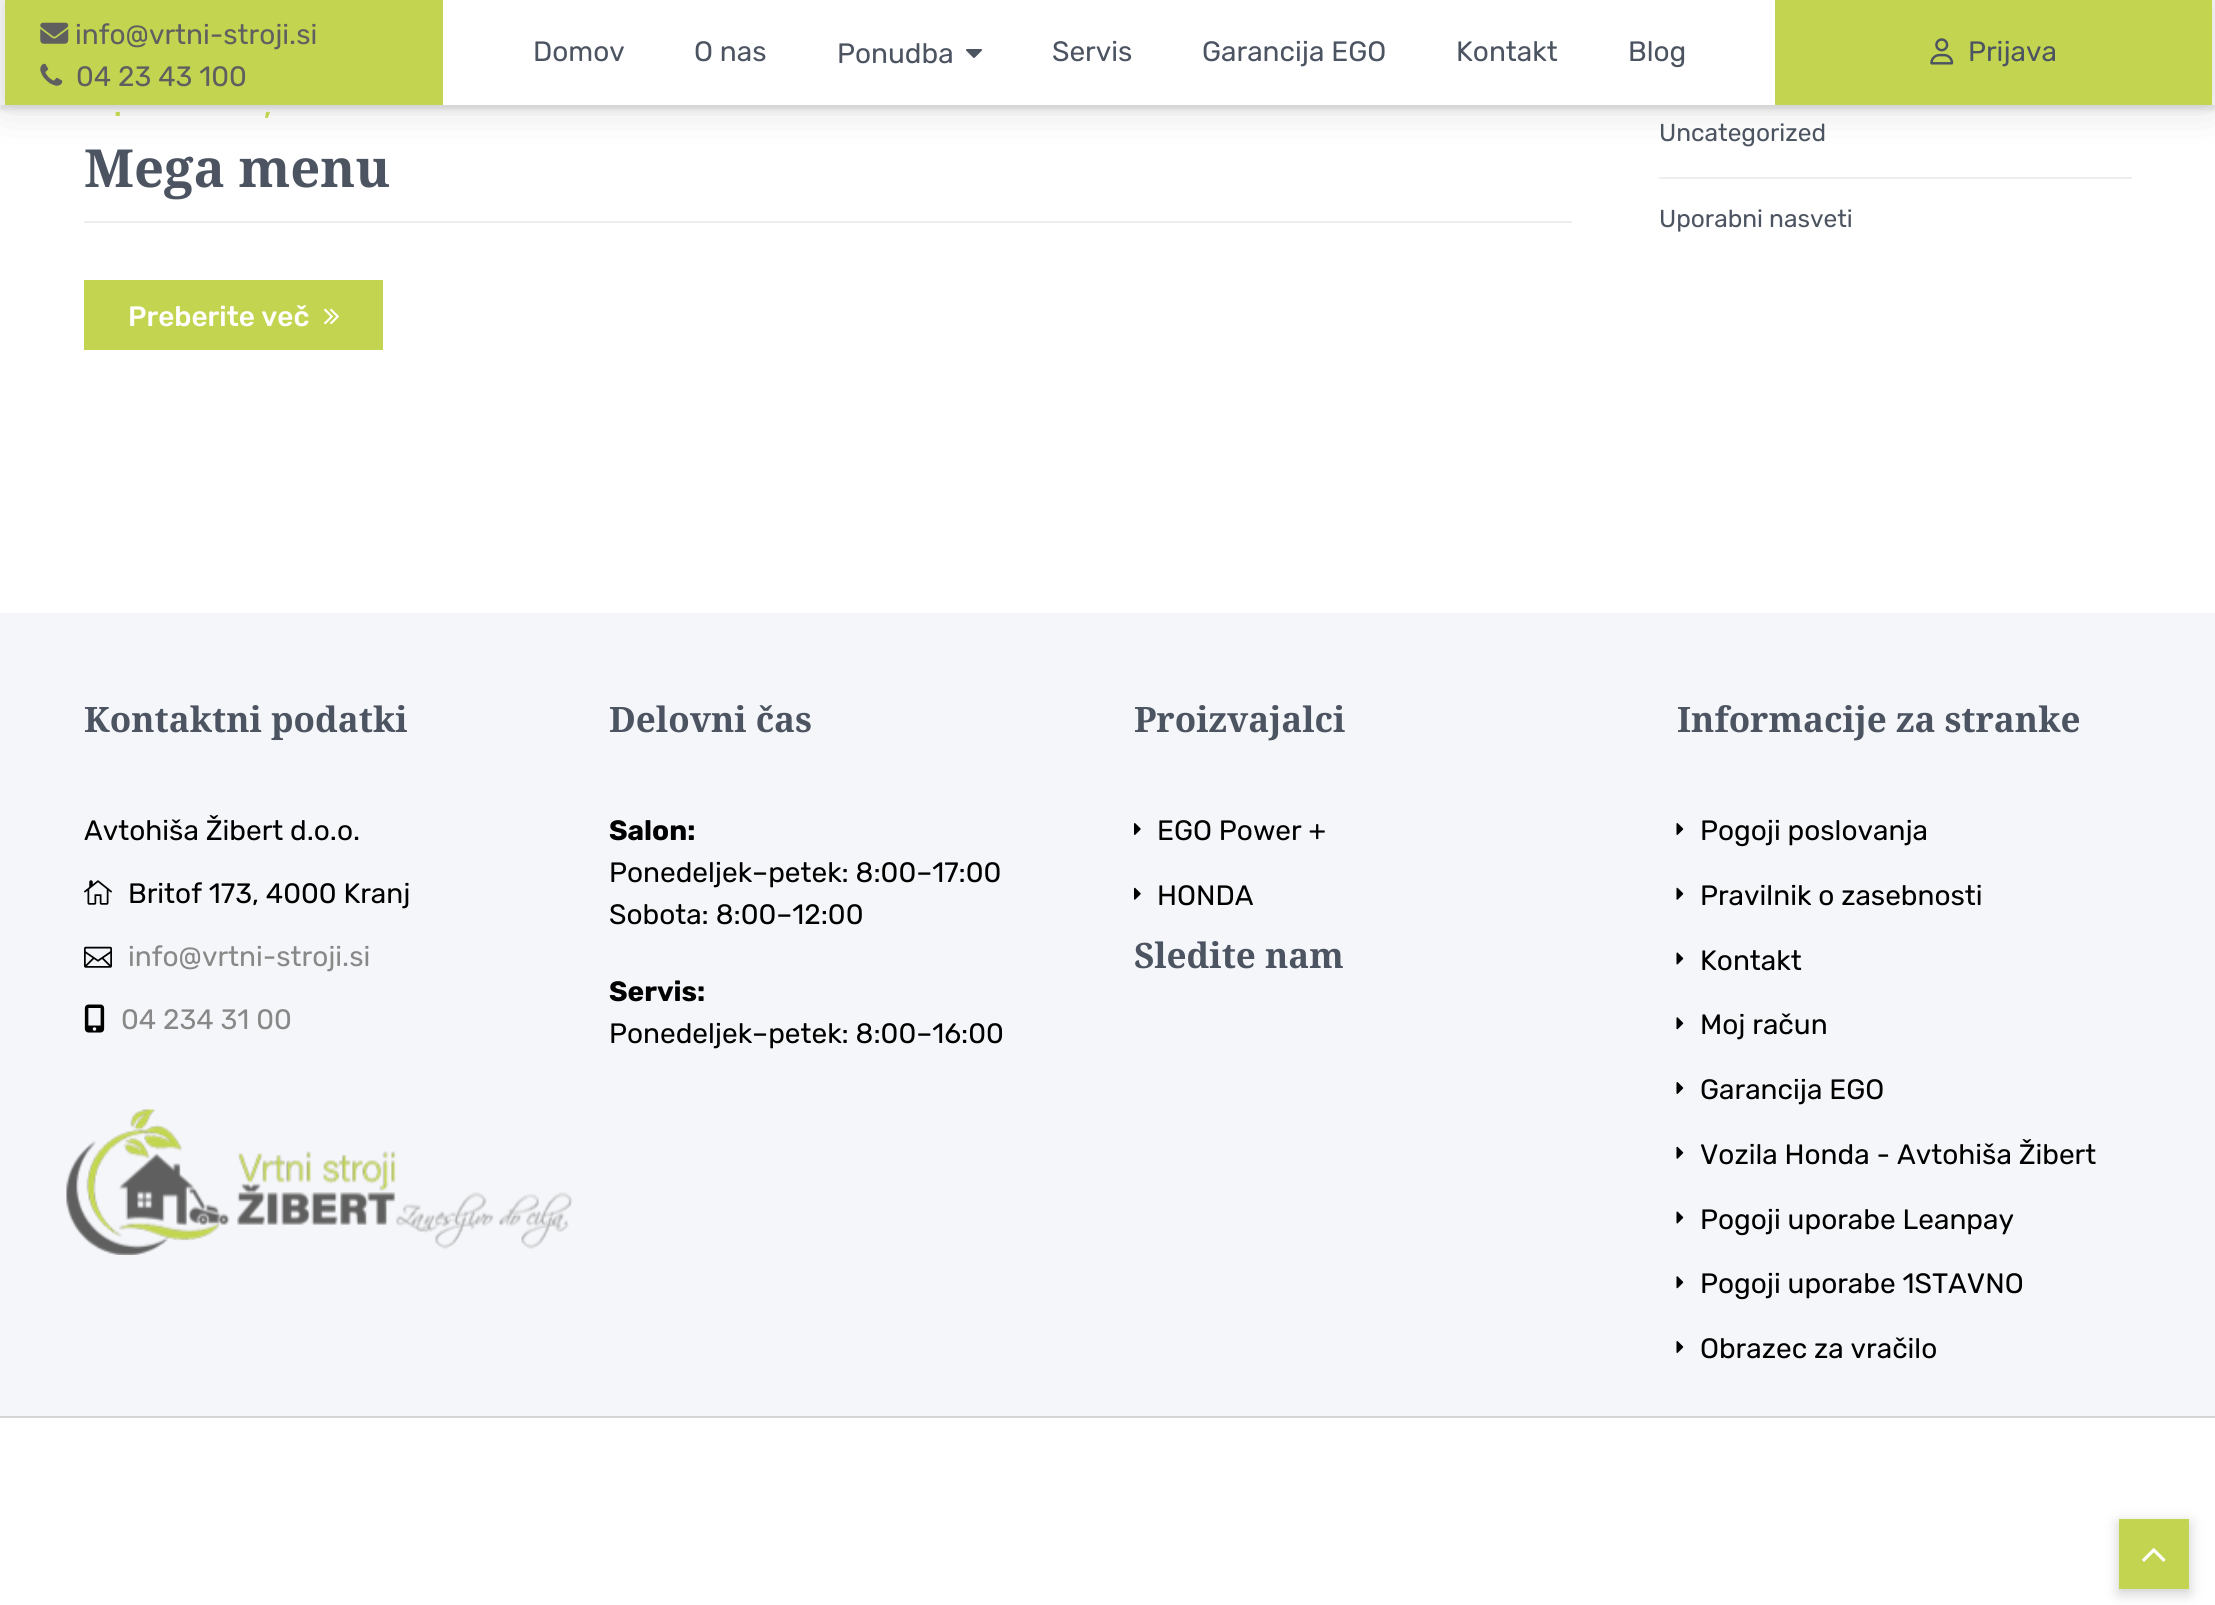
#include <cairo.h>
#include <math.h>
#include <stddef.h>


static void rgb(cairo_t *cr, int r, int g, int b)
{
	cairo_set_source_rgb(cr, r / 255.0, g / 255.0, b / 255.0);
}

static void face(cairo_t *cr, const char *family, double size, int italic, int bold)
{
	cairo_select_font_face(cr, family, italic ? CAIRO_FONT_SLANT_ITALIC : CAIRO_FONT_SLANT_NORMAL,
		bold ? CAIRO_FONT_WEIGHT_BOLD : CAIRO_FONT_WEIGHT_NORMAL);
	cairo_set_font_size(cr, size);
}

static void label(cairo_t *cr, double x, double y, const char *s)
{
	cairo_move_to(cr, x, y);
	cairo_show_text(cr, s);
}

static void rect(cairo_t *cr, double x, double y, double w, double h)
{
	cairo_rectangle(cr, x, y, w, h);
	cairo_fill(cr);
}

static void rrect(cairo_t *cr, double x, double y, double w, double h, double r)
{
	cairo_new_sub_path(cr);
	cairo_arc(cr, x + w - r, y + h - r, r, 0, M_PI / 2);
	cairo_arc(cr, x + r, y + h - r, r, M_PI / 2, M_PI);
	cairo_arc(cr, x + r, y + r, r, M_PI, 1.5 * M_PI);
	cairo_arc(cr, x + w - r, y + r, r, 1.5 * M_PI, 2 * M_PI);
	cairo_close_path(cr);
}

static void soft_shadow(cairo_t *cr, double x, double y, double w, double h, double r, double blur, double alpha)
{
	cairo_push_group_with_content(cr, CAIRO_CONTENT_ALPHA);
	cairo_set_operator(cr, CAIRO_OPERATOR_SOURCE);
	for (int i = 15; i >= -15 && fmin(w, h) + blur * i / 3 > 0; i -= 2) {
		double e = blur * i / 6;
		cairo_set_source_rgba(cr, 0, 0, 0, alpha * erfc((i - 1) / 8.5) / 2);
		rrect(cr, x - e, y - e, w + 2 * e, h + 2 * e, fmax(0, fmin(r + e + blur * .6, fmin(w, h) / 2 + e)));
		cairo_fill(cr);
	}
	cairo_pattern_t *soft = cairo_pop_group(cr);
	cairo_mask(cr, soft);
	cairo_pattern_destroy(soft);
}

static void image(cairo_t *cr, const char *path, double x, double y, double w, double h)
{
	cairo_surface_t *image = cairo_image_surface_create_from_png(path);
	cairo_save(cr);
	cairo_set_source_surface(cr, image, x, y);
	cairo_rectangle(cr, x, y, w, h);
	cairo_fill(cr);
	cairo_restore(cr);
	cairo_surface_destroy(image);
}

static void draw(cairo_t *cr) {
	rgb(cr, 255, 255, 255);
	cairo_paint(cr);
	rgb(cr, 0, 0, 0);
	soft_shadow(cr, 0, 5, 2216, 105, 0, 2.5, 0.1);
	rgb(cr, 251, 251, 251);
	rect(cr, 0, 0, 2215, 105);
	rgb(cr, 0, 0, 0);
	soft_shadow(cr, 5, 0, 2205, 105, 0, 22, 0.15);
	rgb(cr, 255, 255, 255);
	rect(cr, 443, 0, 1332, 105);
	rgb(cr, 195, 212, 80);
	rect(cr, 5, 0, 438, 105);
	image(cr, "image0.png", 40, 22, 29, 22);
	face(cr, "Rubik", 28, 0, 0);
	rgb(cr, 95, 95, 95);
	label(cr, 75, 44, "info@vrtni-stroji.si");
	image(cr, "image1.png", 40, 63, 23, 23);
	label(cr, 76, 86, "04 23 43 100");
	rgb(cr, 76, 84, 97);
	label(cr, 533, 61, "Domov");
	label(cr, 694, 61, "O nas");
	label(cr, 837, 63, "Ponudba");
	image(cr, "image2.png", 966, 49, 16, 9);
	label(cr, 1052, 61, "Servis");
	label(cr, 1202, 61, "Garancija EGO");
	label(cr, 1456, 61, "Kontakt");
	label(cr, 1628, 61, "Blog");
	rgb(cr, 195, 212, 80);
	rect(cr, 1775, 0, 437, 105);
	image(cr, "image3.png", 1930, 38, 24, 27);
	rgb(cr, 76, 84, 97);
	label(cr, 1968, 61, "Prijava");
	face(cr, "Rubik Medium", 28, 0, 0);
	rgb(cr, 195, 212, 80);
	label(cr, 114, 116, ".");
	label(cr, 264, 116, ",");
	face(cr, "Noto Serif", 52.5, 0, 1);
	rgb(cr, 76, 84, 97);
	label(cr, 84, 187, "Mega menu");
	rgb(cr, 238, 238, 238);
	rect(cr, 84, 221, 1488, 2);
	rgb(cr, 195, 212, 80);
	rect(cr, 84, 280, 299, 70);
	face(cr, "Rubik Medium", 28, 0, 0);
	rgb(cr, 255, 255, 255);
	label(cr, 128, 326, "Preberite več");
	image(cr, "image4.png", 324, 308, 15, 17);
	rgb(cr, 238, 238, 238);
	rect(cr, 1659, 177, 473, 2);
	face(cr, "Rubik", 24.5, 0, 0);
	rgb(cr, 76, 84, 97);
	label(cr, 1659, 141, "Uncategorized");
	label(cr, 1659, 227, "Uporabni nasveti");
	rgb(cr, 245, 246, 249);
	rect(cr, 0, 613, 2215, 803);
	rgb(cr, 214, 214, 214);
	rect(cr, 0, 1416, 2215, 2);
	face(cr, "Noto Serif", 35, 0, 1);
	rgb(cr, 76, 84, 97);
	label(cr, 84, 732, "Kontaktni podatki");
	face(cr, "Rubik", 28, 0, 0);
	rgb(cr, 0, 0, 0);
	label(cr, 84, 840, "Avtohiša Žibert d.o.o.");
	image(cr, "image5.png", 84, 880, 28, 25);
	label(cr, 128, 903, "Britof 173, 4000 Kranj");
	image(cr, "image6.png", 84, 946, 28, 22);
	rgb(cr, 136, 136, 136);
	label(cr, 128, 966, "info@vrtni-stroji.si");
	image(cr, "image7.png", 84, 1004, 21, 29);
	label(cr, 121, 1029, "04 234 31 00");
	image(cr, "image8.png", 66, 1109, 507, 146);
	face(cr, "Noto Serif", 35, 0, 1);
	rgb(cr, 76, 84, 97);
	label(cr, 609, 732, "Delovni čas");
	face(cr, "Rubik", 28, 0, 1);
	rgb(cr, 0, 0, 0);
	label(cr, 609, 840, "Salon:");
	face(cr, "Rubik", 28, 0, 0);
	label(cr, 609, 882, "Ponedeljek–petek: 8:00–17:00");
	label(cr, 609, 924, "Sobota: 8:00–12:00");
	face(cr, "Rubik", 28, 0, 1);
	label(cr, 609, 1001, "Servis:");
	face(cr, "Rubik", 28, 0, 0);
	label(cr, 609, 1043, "Ponedeljek–petek: 8:00–16:00");
	face(cr, "Noto Serif", 35, 0, 1);
	rgb(cr, 76, 84, 97);
	label(cr, 1134, 732, "Proizvajalci");
	image(cr, "image9.png", 1134, 823, 7, 12);
	face(cr, "Rubik", 28, 0, 0);
	rgb(cr, 0, 0, 0);
	label(cr, 1157, 840, "EGO Power +");
	image(cr, "image10.png", 1134, 887, 7, 13);
	label(cr, 1157, 905, "HONDA");
	face(cr, "Noto Serif", 35, 0, 1);
	rgb(cr, 76, 84, 97);
	label(cr, 1134, 968, "Sledite nam");
	label(cr, 1677, 732, "Informacije za stranke");
	image(cr, "image11.png", 1676, 823, 8, 12);
	face(cr, "Rubik", 28, 0, 0);
	rgb(cr, 0, 0, 0);
	label(cr, 1700, 840, "Pogoji poslovanja");
	image(cr, "image12.png", 1676, 887, 8, 13);
	label(cr, 1700, 905, "Pravilnik o zasebnosti");
	image(cr, "image13.png", 1676, 952, 8, 13);
	label(cr, 1700, 970, "Kontakt");
	image(cr, "image14.png", 1676, 1017, 8, 13);
	label(cr, 1700, 1034, "Moj račun");
	image(cr, "image11.png", 1676, 1082, 8, 12);
	label(cr, 1700, 1099, "Garancija EGO");
	image(cr, "image12.png", 1676, 1146, 8, 13);
	label(cr, 1700, 1164, "Vozila Honda - Avtohiša Žibert");
	image(cr, "image13.png", 1676, 1211, 8, 13);
	label(cr, 1700, 1229, "Pogoji uporabe Leanpay");
	image(cr, "image14.png", 1676, 1276, 8, 13);
	label(cr, 1700, 1293, "Pogoji uporabe 1STAVNO");
	image(cr, "image11.png", 1676, 1341, 8, 12);
	label(cr, 1700, 1358, "Obrazec za vračilo");
	rgb(cr, 0, 0, 0);
	soft_shadow(cr, 2119, 1523, 70, 70, 0, 7, 0.2);
	rgb(cr, 195, 212, 80);
	rect(cr, 2119, 1519, 70, 70);
	image(cr, "image15.png", 2142, 1548, 24, 14);
}

int main(void) {
	cairo_surface_t *surface = cairo_image_surface_create(CAIRO_FORMAT_RGB24, 2215, 1605);
	cairo_t *cr = cairo_create(surface);
	cairo_font_options_t *options = cairo_font_options_create();
	cairo_font_options_set_hint_metrics(options, CAIRO_HINT_METRICS_OFF);
	cairo_font_options_set_hint_style(options, CAIRO_HINT_STYLE_NONE);
	cairo_set_font_options(cr, options);
	cairo_set_miter_limit(cr, 4);
	draw(cr);
	cairo_surface_write_to_png(surface, "render.png");
	cairo_font_options_destroy(options);
	cairo_destroy(cr);
	cairo_surface_destroy(surface);
	return 0;
}
